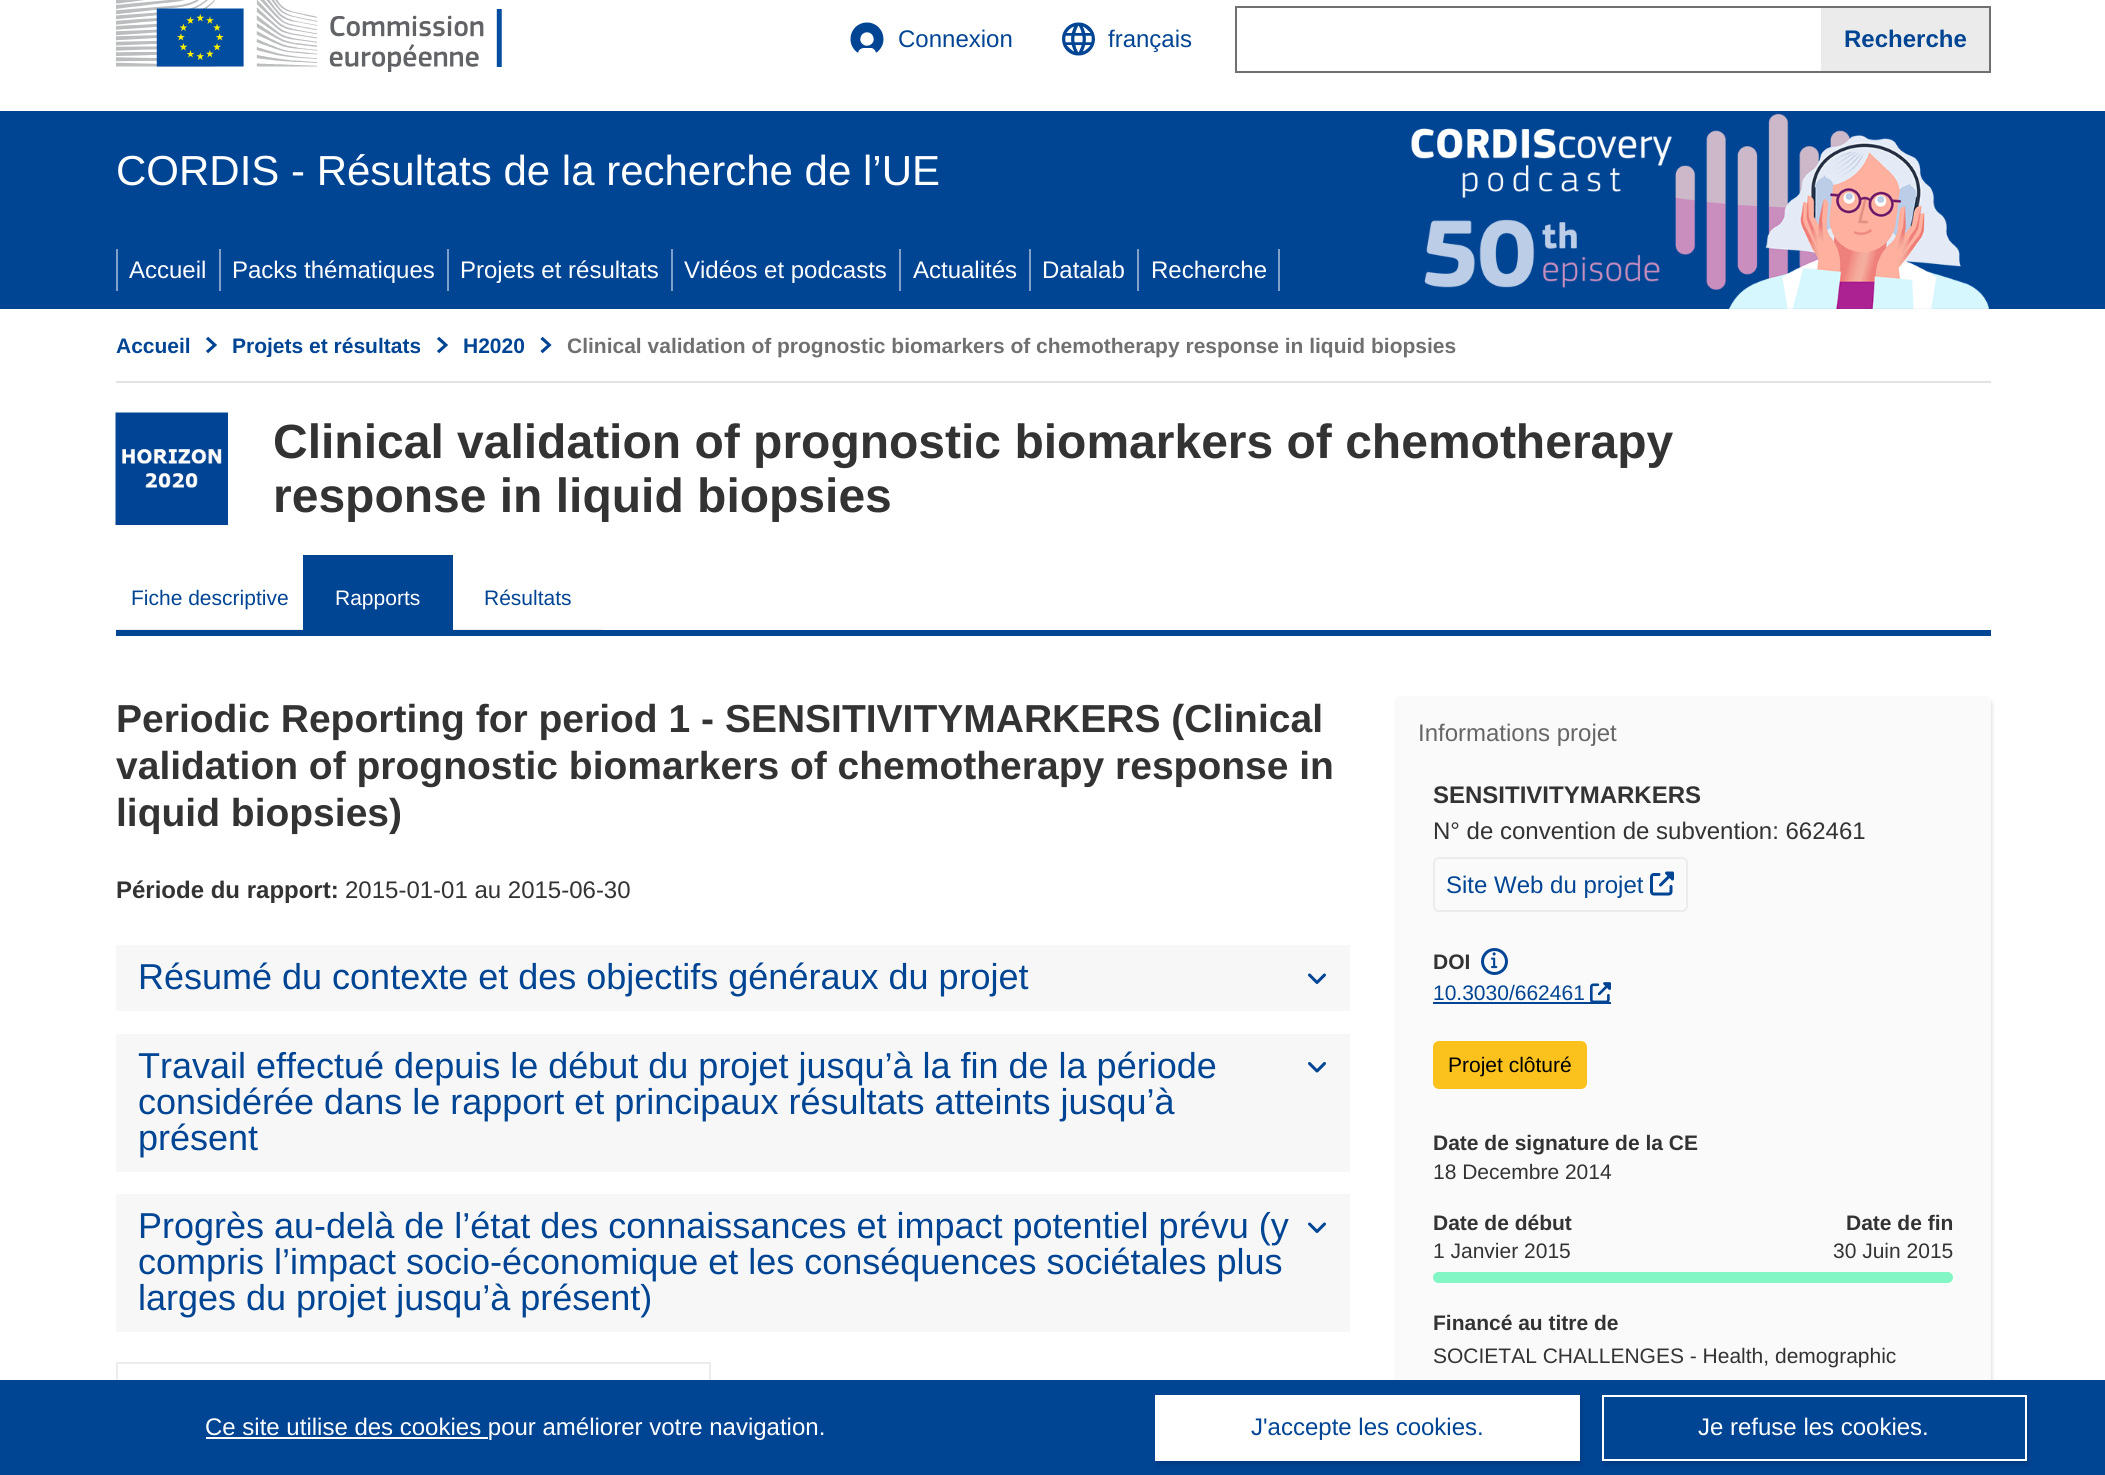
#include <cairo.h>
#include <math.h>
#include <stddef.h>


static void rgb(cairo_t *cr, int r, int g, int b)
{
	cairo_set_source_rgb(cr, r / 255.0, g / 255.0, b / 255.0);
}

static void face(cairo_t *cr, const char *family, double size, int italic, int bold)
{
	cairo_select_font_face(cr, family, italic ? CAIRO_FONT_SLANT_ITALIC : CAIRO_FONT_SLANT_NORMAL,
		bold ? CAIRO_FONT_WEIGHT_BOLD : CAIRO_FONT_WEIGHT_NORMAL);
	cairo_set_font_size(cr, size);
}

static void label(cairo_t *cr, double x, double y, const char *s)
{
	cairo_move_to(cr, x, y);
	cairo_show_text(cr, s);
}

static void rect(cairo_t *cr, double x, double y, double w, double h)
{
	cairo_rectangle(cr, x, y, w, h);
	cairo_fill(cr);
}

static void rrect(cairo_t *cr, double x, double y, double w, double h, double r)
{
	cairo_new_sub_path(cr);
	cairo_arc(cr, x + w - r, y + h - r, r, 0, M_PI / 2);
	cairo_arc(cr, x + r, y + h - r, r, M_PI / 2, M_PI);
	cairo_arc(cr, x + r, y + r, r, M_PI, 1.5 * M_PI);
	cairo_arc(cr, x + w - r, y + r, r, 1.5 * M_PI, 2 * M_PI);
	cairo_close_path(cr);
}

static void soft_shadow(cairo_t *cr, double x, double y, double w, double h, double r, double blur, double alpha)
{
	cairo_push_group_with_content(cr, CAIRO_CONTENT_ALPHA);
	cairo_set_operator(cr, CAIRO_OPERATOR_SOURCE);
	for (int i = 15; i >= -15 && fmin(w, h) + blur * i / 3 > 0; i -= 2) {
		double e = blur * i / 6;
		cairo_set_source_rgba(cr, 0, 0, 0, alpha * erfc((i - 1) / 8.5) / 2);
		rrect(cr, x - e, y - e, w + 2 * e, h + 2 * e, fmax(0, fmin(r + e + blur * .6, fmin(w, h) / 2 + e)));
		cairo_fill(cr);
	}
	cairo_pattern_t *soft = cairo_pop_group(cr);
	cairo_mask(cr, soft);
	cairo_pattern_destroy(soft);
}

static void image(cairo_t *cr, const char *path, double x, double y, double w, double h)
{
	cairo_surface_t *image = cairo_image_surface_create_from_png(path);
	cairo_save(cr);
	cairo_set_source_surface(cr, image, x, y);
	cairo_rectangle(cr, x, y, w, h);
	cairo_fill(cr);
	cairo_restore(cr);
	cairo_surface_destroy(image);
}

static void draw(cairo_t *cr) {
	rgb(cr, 255, 255, 255);
	cairo_paint(cr);
	image(cr, "image0.png", 116, 0, 386, 72);
	image(cr, "image1.png", 850, 22, 34, 31);
	face(cr, "Liberation Sans", 24, 0, 0);
	rgb(cr, 0, 68, 148);
	label(cr, 898, 47, "Connexion");
	image(cr, "image2.png", 1062, 22, 33, 34);
	label(cr, 1108, 47, "français");
	rgb(cr, 112, 112, 112);
	rect(cr, 1235, 6, 756, 2);
	rect(cr, 1235, 71, 586, 2);
	rect(cr, 1235, 6, 2, 66);
	rgb(cr, 235, 235, 235);
	rect(cr, 1821, 8, 168, 63);
	rgb(cr, 112, 112, 112);
	rect(cr, 1989, 6, 2, 66);
	rect(cr, 1821, 71, 170, 2);
	face(cr, "Liberation Sans", 24, 0, 1);
	rgb(cr, 0, 68, 148);
	label(cr, 1844, 47, "Recherche");
	rect(cr, 0, 111, 2105, 198);
	face(cr, "Liberation Sans", 42, 0, 0);
	rgb(cr, 255, 255, 255);
	label(cr, 116, 185, "CORDIS - Résultats de la recherche de l’UE");
	image(cr, "image3.png", 1411, 114, 578, 195);
	rgb(cr, 127, 161, 201);
	rect(cr, 116, 249, 2, 42);
	face(cr, "Liberation Sans", 24, 0, 0);
	rgb(cr, 255, 255, 255);
	label(cr, 129, 278, "Accueil");
	rgb(cr, 127, 161, 201);
	rect(cr, 219, 249, 2, 42);
	rgb(cr, 255, 255, 255);
	label(cr, 232, 278, "Packs thématiques");
	rgb(cr, 127, 161, 201);
	rect(cr, 447, 249, 2, 42);
	rgb(cr, 255, 255, 255);
	label(cr, 460, 278, "Projets et résultats");
	rgb(cr, 127, 161, 201);
	rect(cr, 671, 249, 2, 42);
	rgb(cr, 255, 255, 255);
	label(cr, 684, 278, "Vidéos et podcasts");
	rgb(cr, 127, 161, 201);
	rect(cr, 899, 249, 2, 42);
	rgb(cr, 255, 255, 255);
	label(cr, 913, 278, "Actualités");
	rgb(cr, 127, 161, 201);
	rect(cr, 1029, 249, 2, 42);
	rgb(cr, 255, 255, 255);
	label(cr, 1042, 278, "Datalab");
	rgb(cr, 127, 161, 201);
	rect(cr, 1137, 249, 2, 42);
	rgb(cr, 255, 255, 255);
	label(cr, 1151, 278, "Recherche");
	rgb(cr, 127, 161, 201);
	rect(cr, 1278, 249, 2, 42);
	rgb(cr, 227, 227, 227);
	rect(cr, 116, 381, 1875, 2);
	face(cr, "Liberation Sans", 21, 0, 1);
	rgb(cr, 0, 68, 148);
	label(cr, 116, 353, "Accueil");
	image(cr, "image4.png", 206, 336, 11, 18);
	cairo_save(cr);
	cairo_rectangle(cr, 233, 333, 189, 24);
	cairo_clip(cr);
	label(cr, 232, 353, "Projets et résultats");
	cairo_restore(cr);
	image(cr, "image4.png", 437, 336, 11, 18);
	label(cr, 463, 353, "H2020");
	image(cr, "image5.png", 540, 336, 12, 18);
	rgb(cr, 112, 112, 112);
	label(cr, 567, 353, "Clinical validation of prognostic biomarkers of chemotherapy response in liquid biopsies");
	image(cr, "image6.png", 115, 412, 113, 113);
	face(cr, "Liberation Sans", 48, 0, 1);
	rgb(cr, 51, 51, 51);
	label(cr, 273, 458, "Clinical validation of prognostic biomarkers of chemotherapy");
	label(cr, 273, 512, "response in liquid biopsies");
	rgb(cr, 0, 68, 148);
	rect(cr, 116, 630, 1875, 6);
	rgb(cr, 236, 236, 236);
	rect(cr, 116, 629, 187, 1);
	face(cr, "Liberation Sans", 21, 0, 0);
	rgb(cr, 0, 68, 148);
	label(cr, 131, 605, "Fiche descriptive");
	rect(cr, 303, 555, 150, 75);
	rgb(cr, 255, 255, 255);
	label(cr, 335, 605, "Rapports");
	rgb(cr, 236, 236, 236);
	rect(cr, 453, 629, 150, 1);
	rgb(cr, 0, 68, 148);
	label(cr, 484, 605, "Résultats");
	face(cr, "Liberation Sans", 39, 0, 1);
	rgb(cr, 51, 51, 51);
	label(cr, 116, 732, "Periodic Reporting for period 1 - SENSITIVITYMARKERS (Clinical");
	label(cr, 116, 779, "validation of prognostic biomarkers of chemotherapy response in");
	label(cr, 116, 826, "liquid biopsies)");
	face(cr, "Liberation Sans", 24, 0, 1);
	label(cr, 116, 898, "Période du rapport:");
	face(cr, "Liberation Sans", 24, 0, 0);
	label(cr, 345, 898, "2015-01-01 au 2015-06-30");
	rgb(cr, 247, 247, 247);
	rect(cr, 116, 945, 1234, 66);
	face(cr, "Liberation Sans", 36, 0, 0);
	rgb(cr, 0, 68, 148);
	label(cr, 138, 989, "Résumé du contexte et des objectifs généraux du projet");
	image(cr, "image7.png", 1308, 973, 18, 11);
	rgb(cr, 247, 247, 247);
	rect(cr, 116, 1034, 1234, 138);
	rgb(cr, 0, 68, 148);
	label(cr, 138, 1078, "Travail effectué depuis le début du projet jusqu’à la fin de la période");
	label(cr, 138, 1114, "considérée dans le rapport et principaux résultats atteints jusqu’à");
	label(cr, 138, 1150, "présent");
	image(cr, "image8.png", 1308, 1062, 18, 11);
	rgb(cr, 247, 247, 247);
	rect(cr, 116, 1194, 1234, 138);
	rgb(cr, 0, 68, 148);
	label(cr, 138, 1238, "Progrès au-delà de l’état des connaissances et impact potentiel prévu (y");
	label(cr, 138, 1274, "compris l’impact socio-économique et les conséquences sociétales plus");
	label(cr, 138, 1310, "larges du projet jusqu’à présent)");
	image(cr, "image7.png", 1308, 1222, 18, 11);
	cairo_rectangle(cr, 117, 1363, 593, 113);
	rgb(cr, 236, 236, 236);
	cairo_stroke(cr);
	rgb(cr, 0, 0, 0);
	soft_shadow(cr, 1397, 699, 595, 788, 6, 2, 0.15);
	rgb(cr, 250, 250, 250);
	rrect(cr, 1395, 696, 596, 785, 6);
	cairo_fill(cr);
	face(cr, "Liberation Sans", 24, 0, 0);
	rgb(cr, 102, 102, 102);
	label(cr, 1418, 741, "Informations projet");
	face(cr, "Liberation Sans", 24, 0, 1);
	rgb(cr, 51, 51, 51);
	label(cr, 1433, 803, "SENSITIVITYMARKERS");
	face(cr, "Liberation Sans", 24, 0, 0);
	label(cr, 1433, 839, "N° de convention de subvention: 662461");
	rrect(cr, 1434, 858, 253, 53, 5);
	rgb(cr, 236, 236, 236);
	cairo_stroke(cr);
	rgb(cr, 0, 68, 148);
	label(cr, 1446, 893, "Site Web du projet");
	image(cr, "image9.png", 1650, 871, 24, 25);
	face(cr, "Liberation Sans", 21, 0, 1);
	rgb(cr, 51, 51, 51);
	label(cr, 1433, 969, "DOI");
	cairo_new_path(cr);
	cairo_arc(cr, 1494.5, 961.5, 12, 0, 2 * M_PI);
	rgb(cr, 0, 68, 148);
	cairo_set_line_width(cr, 3);
	cairo_stroke(cr);
	image(cr, "image10.png", 1491, 952, 7, 17);
	face(cr, "Liberation Sans", 21, 0, 0);
	label(cr, 1433, 1000, "10.3030/662461");
	rect(cr, 1433, 1002, 178, 2);
	image(cr, "image11.png", 1590, 982, 21, 20);
	rgb(cr, 251, 193, 29);
	rrect(cr, 1433, 1041, 154, 48, 6);
	cairo_fill(cr);
	rgb(cr, 0, 0, 0);
	label(cr, 1448, 1072, "Projet clôturé");
	face(cr, "Liberation Sans", 21, 0, 1);
	rgb(cr, 51, 51, 51);
	label(cr, 1433, 1150, "Date de signature de la CE");
	face(cr, "Liberation Sans", 21, 0, 0);
	label(cr, 1433, 1179, "18 Decembre 2014");
	face(cr, "Liberation Sans", 21, 0, 1);
	label(cr, 1433, 1230, "Date de début");
	face(cr, "Liberation Sans", 21, 0, 0);
	label(cr, 1433, 1258, "1 Janvier 2015");
	face(cr, "Liberation Sans", 21, 0, 1);
	label(cr, 1846, 1230, "Date de fin");
	face(cr, "Liberation Sans", 21, 0, 0);
	label(cr, 1833, 1258, "30 Juin 2015");
	rgb(cr, 130, 246, 196);
	rrect(cr, 1433, 1272, 520, 11, 5.5);
	cairo_fill(cr);
	face(cr, "Liberation Sans", 21, 0, 1);
	rgb(cr, 51, 51, 51);
	label(cr, 1433, 1330, "Financé au titre de");
	face(cr, "Liberation Sans", 21, 0, 0);
	label(cr, 1433, 1363, "SOCIETAL CHALLENGES - Health, demographic");
	rgb(cr, 0, 68, 148);
	rect(cr, 0, 1380, 2105, 95);
	rgb(cr, 255, 255, 255);
	rect(cr, 206, 1437, 282, 2);
	face(cr, "Liberation Sans", 24, 0, 0);
	label(cr, 205, 1435, "Ce site utilise des cookies pour améliorer votre navigation.");
	rgb(cr, 0, 0, 0);
	soft_shadow(cr, 1157, 1398, 424, 66, 0, 2, 0.15);
	rgb(cr, 255, 255, 255);
	rect(cr, 1155, 1395, 425, 66);
	rgb(cr, 0, 68, 148);
	label(cr, 1251, 1435, "J'accepte les cookies.");
	rgb(cr, 0, 0, 0);
	soft_shadow(cr, 1604, 1398, 424, 66, 0, 2, 0.15);
	rgb(cr, 0, 68, 148);
	cairo_rectangle(cr, 1603, 1396, 423, 64);
	cairo_fill_preserve(cr);
	rgb(cr, 255, 255, 255);
	cairo_set_line_width(cr, 2);
	cairo_stroke(cr);
	label(cr, 1698, 1435, "Je refuse les cookies.");
}

int main(void) {
	cairo_surface_t *surface = cairo_image_surface_create(CAIRO_FORMAT_RGB24, 2105, 1475);
	cairo_t *cr = cairo_create(surface);
	cairo_font_options_t *options = cairo_font_options_create();
	cairo_font_options_set_hint_metrics(options, CAIRO_HINT_METRICS_OFF);
	cairo_font_options_set_hint_style(options, CAIRO_HINT_STYLE_NONE);
	cairo_set_font_options(cr, options);
	cairo_set_miter_limit(cr, 4);
	draw(cr);
	cairo_surface_write_to_png(surface, "render.png");
	cairo_font_options_destroy(options);
	cairo_destroy(cr);
	cairo_surface_destroy(surface);
	return 0;
}
